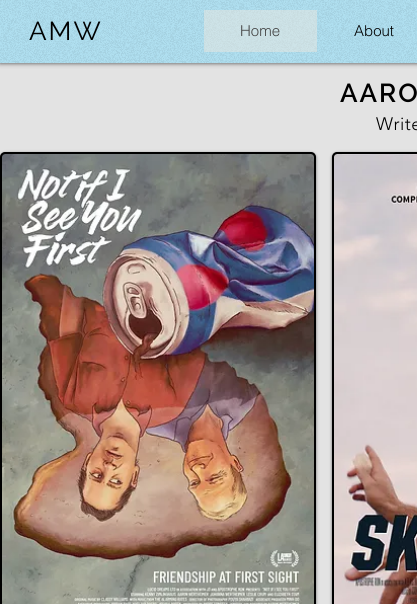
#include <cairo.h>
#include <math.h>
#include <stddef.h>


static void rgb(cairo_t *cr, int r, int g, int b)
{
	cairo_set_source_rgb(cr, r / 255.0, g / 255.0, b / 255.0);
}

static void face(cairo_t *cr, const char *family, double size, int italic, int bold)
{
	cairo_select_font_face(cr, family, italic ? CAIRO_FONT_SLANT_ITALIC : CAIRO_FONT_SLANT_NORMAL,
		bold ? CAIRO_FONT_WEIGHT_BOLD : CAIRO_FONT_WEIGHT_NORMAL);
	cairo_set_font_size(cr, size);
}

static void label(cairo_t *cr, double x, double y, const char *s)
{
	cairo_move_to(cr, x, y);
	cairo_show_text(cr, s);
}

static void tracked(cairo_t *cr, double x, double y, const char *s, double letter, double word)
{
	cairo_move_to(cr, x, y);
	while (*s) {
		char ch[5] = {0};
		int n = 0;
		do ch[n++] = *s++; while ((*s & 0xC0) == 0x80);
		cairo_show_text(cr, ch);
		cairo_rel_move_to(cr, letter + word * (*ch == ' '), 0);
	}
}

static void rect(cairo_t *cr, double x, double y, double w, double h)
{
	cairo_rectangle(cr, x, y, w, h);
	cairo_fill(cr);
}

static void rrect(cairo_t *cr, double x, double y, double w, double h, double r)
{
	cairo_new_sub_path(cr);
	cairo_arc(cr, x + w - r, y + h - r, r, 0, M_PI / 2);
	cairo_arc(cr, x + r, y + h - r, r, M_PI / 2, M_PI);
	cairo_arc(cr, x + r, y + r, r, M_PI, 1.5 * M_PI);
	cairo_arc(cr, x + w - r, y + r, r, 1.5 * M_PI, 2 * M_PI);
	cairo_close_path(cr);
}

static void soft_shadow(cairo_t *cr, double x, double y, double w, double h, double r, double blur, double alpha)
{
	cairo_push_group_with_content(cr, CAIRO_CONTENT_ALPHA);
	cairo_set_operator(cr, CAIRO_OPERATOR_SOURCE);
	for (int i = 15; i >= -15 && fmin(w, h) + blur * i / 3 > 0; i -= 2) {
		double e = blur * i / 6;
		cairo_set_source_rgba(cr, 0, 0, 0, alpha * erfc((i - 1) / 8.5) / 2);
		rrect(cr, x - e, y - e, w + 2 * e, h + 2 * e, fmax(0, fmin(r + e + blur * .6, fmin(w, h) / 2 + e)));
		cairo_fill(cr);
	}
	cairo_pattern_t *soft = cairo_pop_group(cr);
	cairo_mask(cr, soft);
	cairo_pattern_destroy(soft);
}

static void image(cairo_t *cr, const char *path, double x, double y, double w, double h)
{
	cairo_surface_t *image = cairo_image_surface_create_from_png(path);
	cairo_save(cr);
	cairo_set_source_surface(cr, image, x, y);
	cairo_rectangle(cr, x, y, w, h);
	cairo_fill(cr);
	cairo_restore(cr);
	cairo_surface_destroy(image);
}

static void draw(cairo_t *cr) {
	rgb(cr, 227, 227, 227);
	cairo_paint(cr);
	rgb(cr, 0, 0, 0);
	soft_shadow(cr, 0, 0, 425, 63, 0, 2.5, 0.7);
	rgb(cr, 175, 223, 240);
	rect(cr, 0, 0, 417, 63);
	image(cr, "image0.png", 0, 0, 417, 63);
	face(cr, "Raleway", 26, 0, 0);
	rgb(cr, 0, 0, 0);
	tracked(cr, 29, 40, "AMW", 2, 0);
	cairo_set_source_rgba(cr, 0.929, 0.914, 0.882, 0.5);
	rect(cr, 204, 10, 113, 42);
	face(cr, "helvetica Light", 15, 0, 0);
	rgb(cr, 68, 68, 68);
	label(cr, 240, 36, "Home");
	rgb(cr, 0, 0, 0);
	label(cr, 354, 36, "About");
	face(cr, "Raleway SemiBold", 26, 0, 0);
	tracked(cr, 340, 102, "AARO", 2, 0);
	face(cr, "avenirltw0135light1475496 Light", 18, 0, 0);
	tracked(cr, 376, 130, "Write", 0.5, 0);
	rgb(cr, 0, 0, 0);
	soft_shadow(cr, 0, 153, 316, 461, 5, 1.5, 0.5);
	rgb(cr, 0, 0, 0);
	rrect(cr, 1, 153, 314, 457, 4);
	cairo_fill_preserve(cr);
	cairo_stroke(cr);
	image(cr, "image1.png", 2, 154, 312, 450);
	rgb(cr, 0, 0, 0);
	soft_shadow(cr, 332, 153, 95, 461, 5, 1.5, 0.5);
	rgb(cr, 0, 0, 0);
	rrect(cr, 333, 153, 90, 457, 4);
	cairo_fill_preserve(cr);
	cairo_stroke(cr);
	image(cr, "image2.png", 334, 154, 83, 450);
}

int main(void) {
	cairo_surface_t *surface = cairo_image_surface_create(CAIRO_FORMAT_RGB24, 417, 604);
	cairo_t *cr = cairo_create(surface);
	cairo_font_options_t *options = cairo_font_options_create();
	cairo_font_options_set_hint_metrics(options, CAIRO_HINT_METRICS_OFF);
	cairo_font_options_set_hint_style(options, CAIRO_HINT_STYLE_NONE);
	cairo_set_font_options(cr, options);
	cairo_set_miter_limit(cr, 4);
	draw(cr);
	cairo_surface_write_to_png(surface, "render.png");
	cairo_font_options_destroy(options);
	cairo_destroy(cr);
	cairo_surface_destroy(surface);
	return 0;
}
